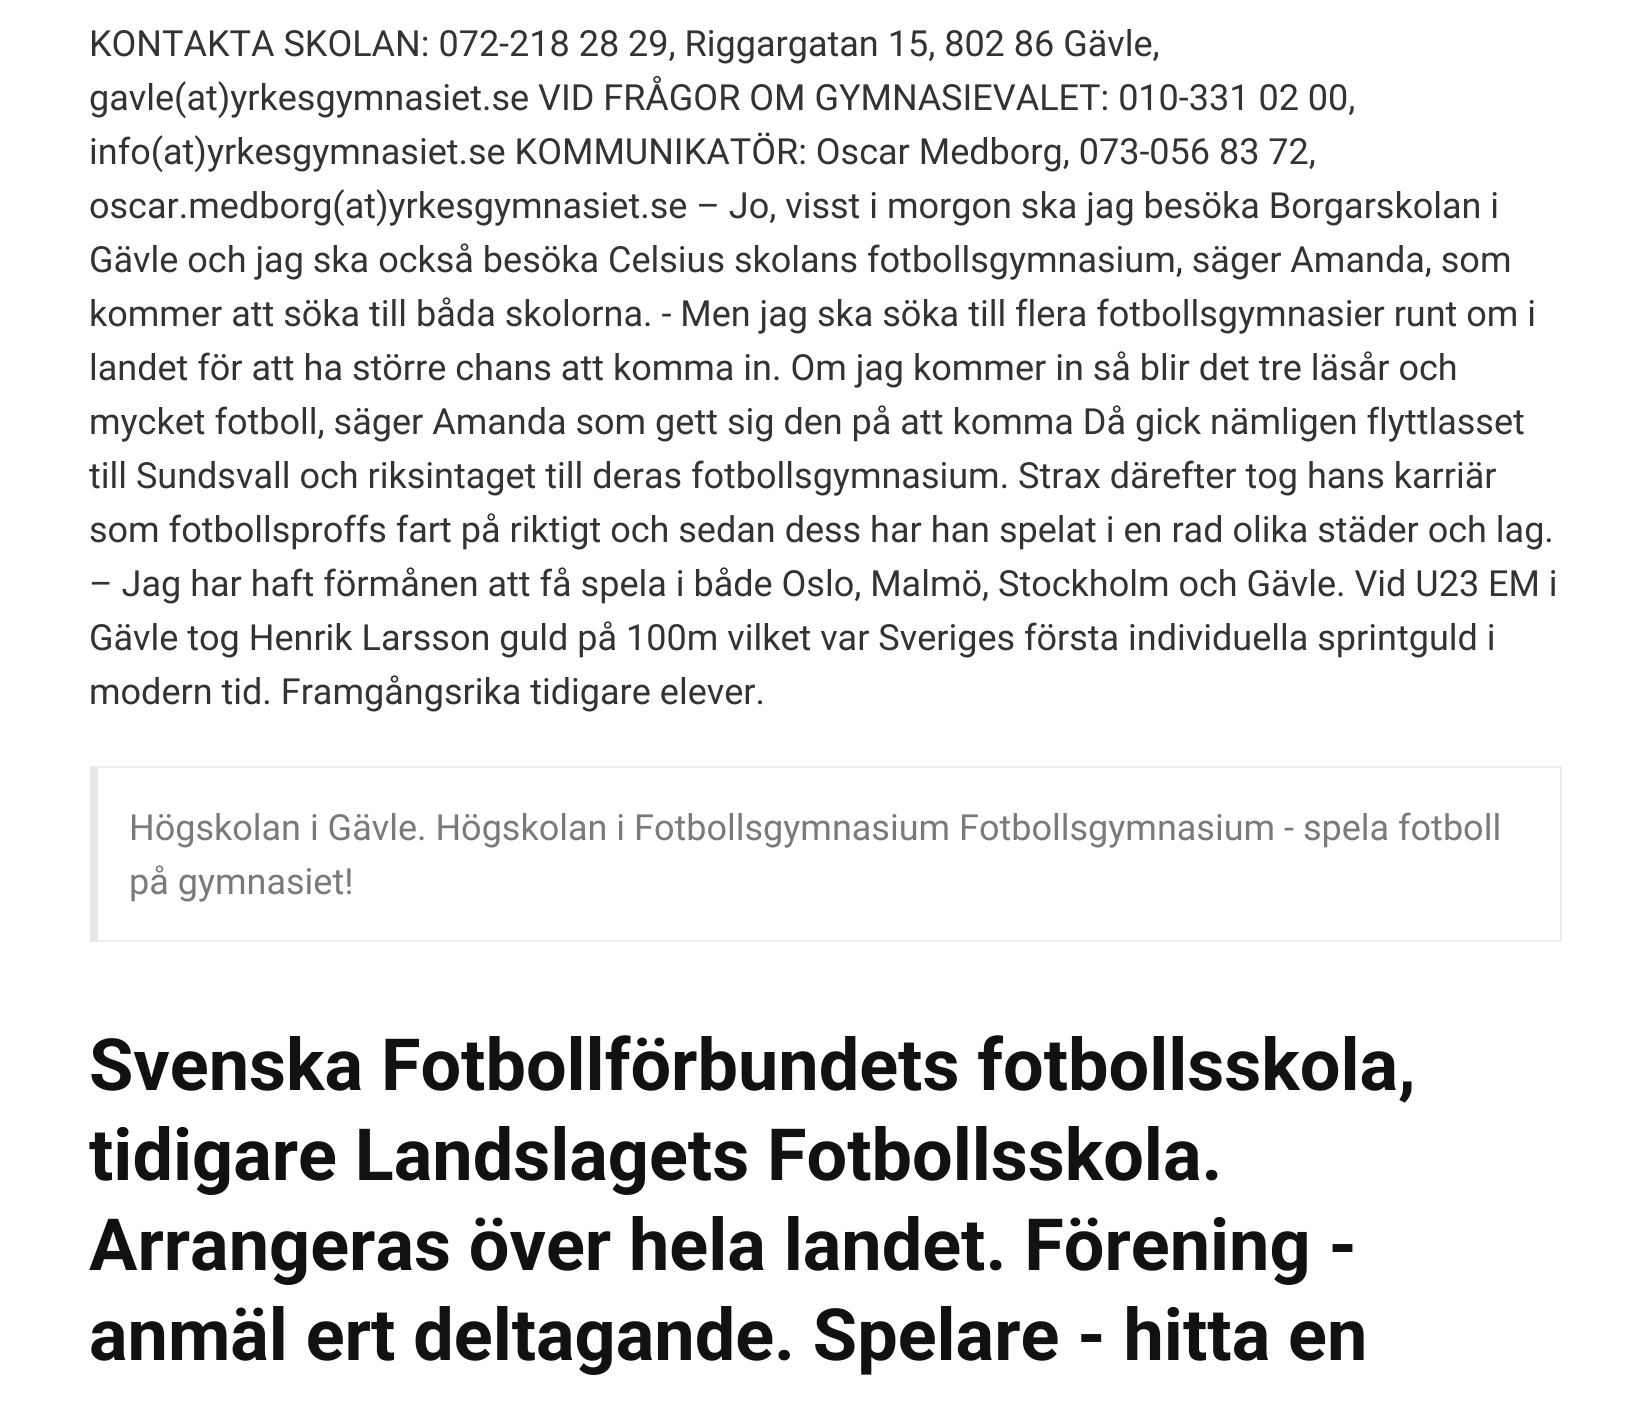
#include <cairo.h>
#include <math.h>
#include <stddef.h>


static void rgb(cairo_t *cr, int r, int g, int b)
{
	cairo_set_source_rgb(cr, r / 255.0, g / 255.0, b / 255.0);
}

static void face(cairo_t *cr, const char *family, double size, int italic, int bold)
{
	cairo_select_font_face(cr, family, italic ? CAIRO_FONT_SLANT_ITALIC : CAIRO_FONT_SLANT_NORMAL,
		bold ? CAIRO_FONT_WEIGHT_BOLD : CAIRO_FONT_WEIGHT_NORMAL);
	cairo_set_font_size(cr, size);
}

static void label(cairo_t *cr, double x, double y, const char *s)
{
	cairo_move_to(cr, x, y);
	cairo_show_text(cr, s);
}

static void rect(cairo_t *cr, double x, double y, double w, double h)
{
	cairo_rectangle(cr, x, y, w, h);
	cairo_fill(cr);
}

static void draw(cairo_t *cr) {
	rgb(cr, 255, 255, 255);
	cairo_paint(cr);
	face(cr, "Roboto", 36, 0, 0);
	rgb(cr, 51, 51, 51);
	label(cr, 89, 56, "KONTAKTA SKOLAN: 072-218 28 29, Riggargatan 15, 802 86 Gävle,");
	label(cr, 89, 110, "gavle(at)yrkesgymnasiet.se VID FRÅGOR OM GYMNASIEVALET: 010-331 02 00,");
	label(cr, 89, 164, "info(at)yrkesgymnasiet.se KOMMUNIKATÖR: Oscar Medborg, 073-056 83 72,");
	label(cr, 89, 218, "oscar.medborg(at)yrkesgymnasiet.se – Jo, visst i morgon ska jag besöka Borgarskolan i");
	label(cr, 89, 272, "Gävle och jag ska också besöka Celsius skolans fotbollsgymnasium, säger Amanda, som");
	label(cr, 89, 326, "kommer att söka till båda skolorna. - Men jag ska söka till flera fotbollsgymnasier runt om i");
	label(cr, 89, 380, "landet för att ha större chans att komma in. Om jag kommer in så blir det tre läsår och");
	label(cr, 89, 434, "mycket fotboll, säger Amanda som gett sig den på att komma Då gick nämligen flyttlasset");
	label(cr, 89, 488, "till Sundsvall och riksintaget till deras fotbollsgymnasium. Strax därefter tog hans karriär");
	label(cr, 89, 542, "som fotbollsproffs fart på riktigt och sedan dess har han spelat i en rad olika städer och lag.");
	label(cr, 89, 596, "– Jag har haft förmånen att få spela i både Oslo, Malmö, Stockholm och Gävle. Vid U23 EM i");
	label(cr, 89, 650, "Gävle tog Henrik Larsson guld på 100m vilket var Sveriges första individuella sprintguld i");
	label(cr, 89, 704, "modern tid. Framgångsrika tidigare elever.");
	rgb(cr, 238, 238, 238);
	cairo_new_path(cr);
	cairo_move_to(cr, 90, 766);
	cairo_line_to(cr, 1562, 766);
	cairo_line_to(cr, 1560, 768);
	cairo_line_to(cr, 98, 768);
	cairo_close_path(cr);
	cairo_fill(cr);
	rect(cr, 1560, 766, 2, 176);
	cairo_new_path(cr);
	cairo_move_to(cr, 1562, 942);
	cairo_line_to(cr, 90, 942);
	cairo_line_to(cr, 98, 940);
	cairo_line_to(cr, 1560, 940);
	cairo_close_path(cr);
	cairo_fill(cr);
	cairo_set_source_rgba(cr, 0, 0, 0, 0.1);
	cairo_new_path(cr);
	cairo_move_to(cr, 90, 942);
	cairo_line_to(cr, 90, 766);
	cairo_line_to(cr, 98, 768);
	cairo_line_to(cr, 98, 940);
	cairo_close_path(cr);
	cairo_fill(cr);
	rgb(cr, 122, 122, 122);
	label(cr, 129, 840, "Högskolan i Gävle. Högskolan i Fotbollsgymnasium Fotbollsgymnasium - spela fotboll");
	label(cr, 129, 894, "på gymnasiet!");
	face(cr, "Roboto", 72, 0, 1);
	rgb(cr, 17, 17, 17);
	label(cr, 89, 1090, "Svenska Fotbollförbundets fotbollsskola,");
	label(cr, 89, 1180, "tidigare Landslagets Fotbollsskola.");
	label(cr, 89, 1270, "Arrangeras över hela landet. Förening -");
	label(cr, 89, 1360, "anmäl ert deltagande. Spelare - hitta en");
}

int main(void) {
	cairo_surface_t *surface = cairo_image_surface_create(CAIRO_FORMAT_RGB24, 1649, 1418);
	cairo_t *cr = cairo_create(surface);
	cairo_font_options_t *options = cairo_font_options_create();
	cairo_font_options_set_hint_metrics(options, CAIRO_HINT_METRICS_OFF);
	cairo_font_options_set_hint_style(options, CAIRO_HINT_STYLE_NONE);
	cairo_set_font_options(cr, options);
	cairo_set_miter_limit(cr, 4);
	draw(cr);
	cairo_surface_write_to_png(surface, "render.png");
	cairo_font_options_destroy(options);
	cairo_destroy(cr);
	cairo_surface_destroy(surface);
	return 0;
}
